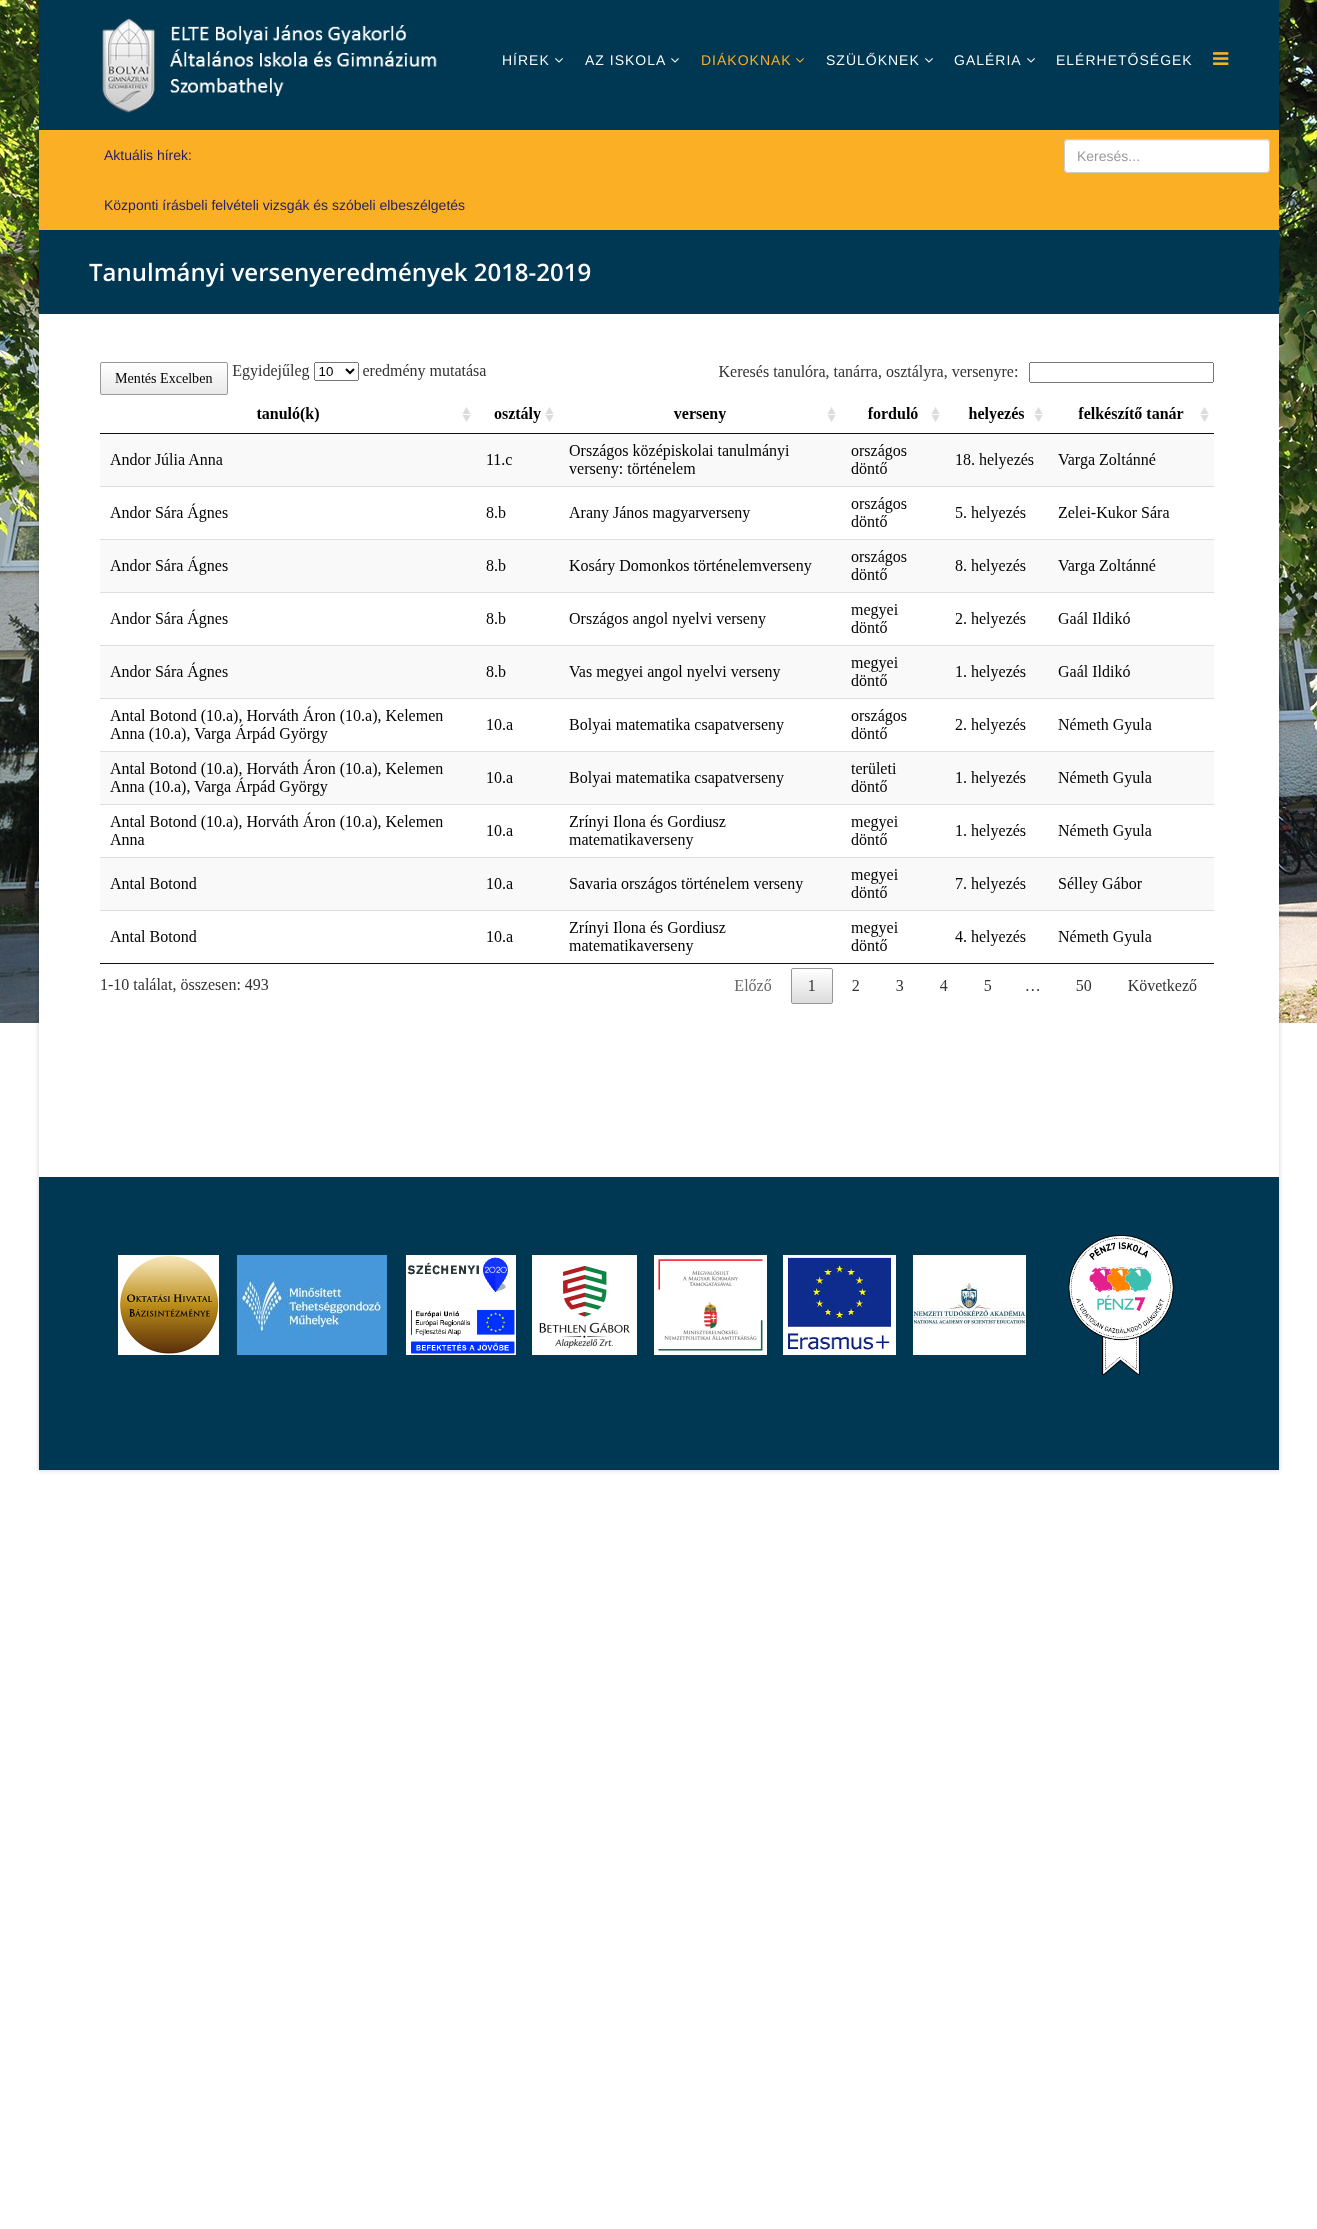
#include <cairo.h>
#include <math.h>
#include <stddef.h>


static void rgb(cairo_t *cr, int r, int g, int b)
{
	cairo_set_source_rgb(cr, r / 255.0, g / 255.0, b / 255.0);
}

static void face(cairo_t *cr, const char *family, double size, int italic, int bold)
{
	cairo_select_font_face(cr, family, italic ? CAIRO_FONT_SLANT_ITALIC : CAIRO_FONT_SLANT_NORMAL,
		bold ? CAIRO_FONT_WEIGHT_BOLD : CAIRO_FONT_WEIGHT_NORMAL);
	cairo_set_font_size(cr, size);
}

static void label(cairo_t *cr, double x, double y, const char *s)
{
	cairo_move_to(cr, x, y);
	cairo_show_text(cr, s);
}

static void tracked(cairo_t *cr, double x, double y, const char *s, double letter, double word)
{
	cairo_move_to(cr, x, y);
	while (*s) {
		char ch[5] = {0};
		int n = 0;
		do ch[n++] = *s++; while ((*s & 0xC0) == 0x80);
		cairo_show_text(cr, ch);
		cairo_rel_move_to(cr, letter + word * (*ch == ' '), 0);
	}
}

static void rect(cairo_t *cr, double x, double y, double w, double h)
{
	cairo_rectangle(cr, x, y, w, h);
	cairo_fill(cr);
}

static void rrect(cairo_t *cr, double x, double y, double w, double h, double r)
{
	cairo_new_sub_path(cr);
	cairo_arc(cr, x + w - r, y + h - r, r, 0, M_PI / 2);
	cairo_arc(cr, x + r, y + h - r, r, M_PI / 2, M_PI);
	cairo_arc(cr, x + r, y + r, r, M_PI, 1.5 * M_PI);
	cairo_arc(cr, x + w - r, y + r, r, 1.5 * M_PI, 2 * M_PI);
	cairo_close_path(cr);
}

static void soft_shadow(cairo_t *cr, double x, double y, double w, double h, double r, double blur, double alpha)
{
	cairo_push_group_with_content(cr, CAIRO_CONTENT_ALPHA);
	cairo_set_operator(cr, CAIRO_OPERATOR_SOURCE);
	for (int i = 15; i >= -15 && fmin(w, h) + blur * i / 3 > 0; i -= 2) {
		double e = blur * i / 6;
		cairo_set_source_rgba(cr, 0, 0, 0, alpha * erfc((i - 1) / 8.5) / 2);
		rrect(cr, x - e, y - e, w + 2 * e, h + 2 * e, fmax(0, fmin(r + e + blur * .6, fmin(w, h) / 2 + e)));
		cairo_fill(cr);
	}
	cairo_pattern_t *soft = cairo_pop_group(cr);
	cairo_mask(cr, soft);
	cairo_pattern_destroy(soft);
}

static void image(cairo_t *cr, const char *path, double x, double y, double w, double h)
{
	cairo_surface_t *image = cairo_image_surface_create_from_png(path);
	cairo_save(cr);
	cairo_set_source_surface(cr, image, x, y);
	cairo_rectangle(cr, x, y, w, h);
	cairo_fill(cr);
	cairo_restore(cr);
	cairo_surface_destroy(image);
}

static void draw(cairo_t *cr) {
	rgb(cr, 255, 255, 255);
	cairo_paint(cr);
	image(cr, "image0.png", 0, 0, 1317, 1023);
	rgb(cr, 0, 0, 0);
	soft_shadow(cr, 39, 0, 1240, 1470, 0, 2.5, 0.2);
	rgb(cr, 255, 255, 255);
	rect(cr, 39, 314, 1240, 863);
	rgb(cr, 0, 56, 84);
	rect(cr, 39, 0, 1240, 130);
	image(cr, "image1.png", 102, 18, 335, 95);
	face(cr, "Liberation Sans", 14, 0, 0);
	rgb(cr, 255, 255, 255);
	tracked(cr, 502, 65, "HÍREK", 1, 0);
	image(cr, "image2.png", 555, 58, 8, 5);
	tracked(cr, 585, 65, "AZ ISKOLA", 1, 0);
	image(cr, "image2.png", 671, 58, 8, 5);
	rgb(cr, 251, 175, 37);
	tracked(cr, 701, 65, "DIÁKOKNAK", 1, 0);
	image(cr, "image3.png", 796, 58, 8, 5);
	rgb(cr, 255, 255, 255);
	tracked(cr, 826, 65, "SZÜLŐKNEK", 1, 0);
	image(cr, "image2.png", 925, 58, 8, 5);
	tracked(cr, 954, 65, "GALÉRIA", 1, 0);
	image(cr, "image2.png", 1027, 58, 8, 5);
	tracked(cr, 1056, 65, "ELÉRHETŐSÉGEK", 1, 0);
	image(cr, "image4.png", 1213, 52, 16, 13);
	rgb(cr, 251, 175, 37);
	rect(cr, 39, 130, 1240, 100);
	rgb(cr, 37, 31, 110);
	label(cr, 104, 160, "Aktuális hírek:");
	label(cr, 104, 210, "Központi írásbeli felvételi vizsgák és szóbeli elbeszélgetés");
	rgb(cr, 255, 255, 255);
	rrect(cr, 1064, 139, 206, 34, 4);
	cairo_fill(cr);
	rgb(cr, 236, 236, 236);
	cairo_new_path(cr);
	cairo_move_to(cr, 1068, 141);
	cairo_line_to(cr, 1266, 141);
	cairo_curve_to(cr, 1268, 141, 1269, 142, 1269, 144);
	cairo_curve_to(cr, 1269, 142, 1268, 140, 1266, 140);
	cairo_line_to(cr, 1068, 140);
	cairo_curve_to(cr, 1066, 140, 1065, 142, 1065, 144);
	cairo_curve_to(cr, 1065, 142, 1066, 141, 1068, 141);
	cairo_close_path(cr);
	cairo_fill(cr);
	rrect(cr, 1064.5, 139.5, 205, 33, 3.5);
	rgb(cr, 204, 204, 204);
	cairo_set_line_width(cr, 1);
	cairo_stroke(cr);
	rgb(cr, 153, 153, 153);
	label(cr, 1077, 161, "Keresés...");
	rgb(cr, 0, 56, 84);
	rect(cr, 39, 230, 1240, 84);
	face(cr, "Open Sans SemiBold", 24, 0, 0);
	rgb(cr, 255, 255, 255);
	label(cr, 89, 281, "Tanulmányi versenyeredmények 2018-2019");
	image(cr, "image5.png", 100, 362, 1114, 642);
	rgb(cr, 0, 56, 84);
	rect(cr, 39, 1177, 1240, 293);
	image(cr, "image6.png", 118, 1255, 101, 100);
	image(cr, "image7.png", 237, 1255, 150, 100);
	image(cr, "image8.png", 406, 1255, 110, 100);
	image(cr, "image9.png", 532, 1255, 105, 100);
	image(cr, "image10.png", 654, 1255, 113, 100);
	image(cr, "image11.png", 783, 1255, 113, 100);
	image(cr, "image12.png", 913, 1255, 113, 100);
	image(cr, "image13.png", 1068, 1235, 106, 140);
}

int main(void) {
	cairo_surface_t *surface = cairo_image_surface_create(CAIRO_FORMAT_RGB24, 1317, 2229);
	cairo_t *cr = cairo_create(surface);
	cairo_font_options_t *options = cairo_font_options_create();
	cairo_font_options_set_hint_metrics(options, CAIRO_HINT_METRICS_OFF);
	cairo_font_options_set_hint_style(options, CAIRO_HINT_STYLE_NONE);
	cairo_set_font_options(cr, options);
	cairo_set_miter_limit(cr, 4);
	draw(cr);
	cairo_surface_write_to_png(surface, "render.png");
	cairo_font_options_destroy(options);
	cairo_destroy(cr);
	cairo_surface_destroy(surface);
	return 0;
}
